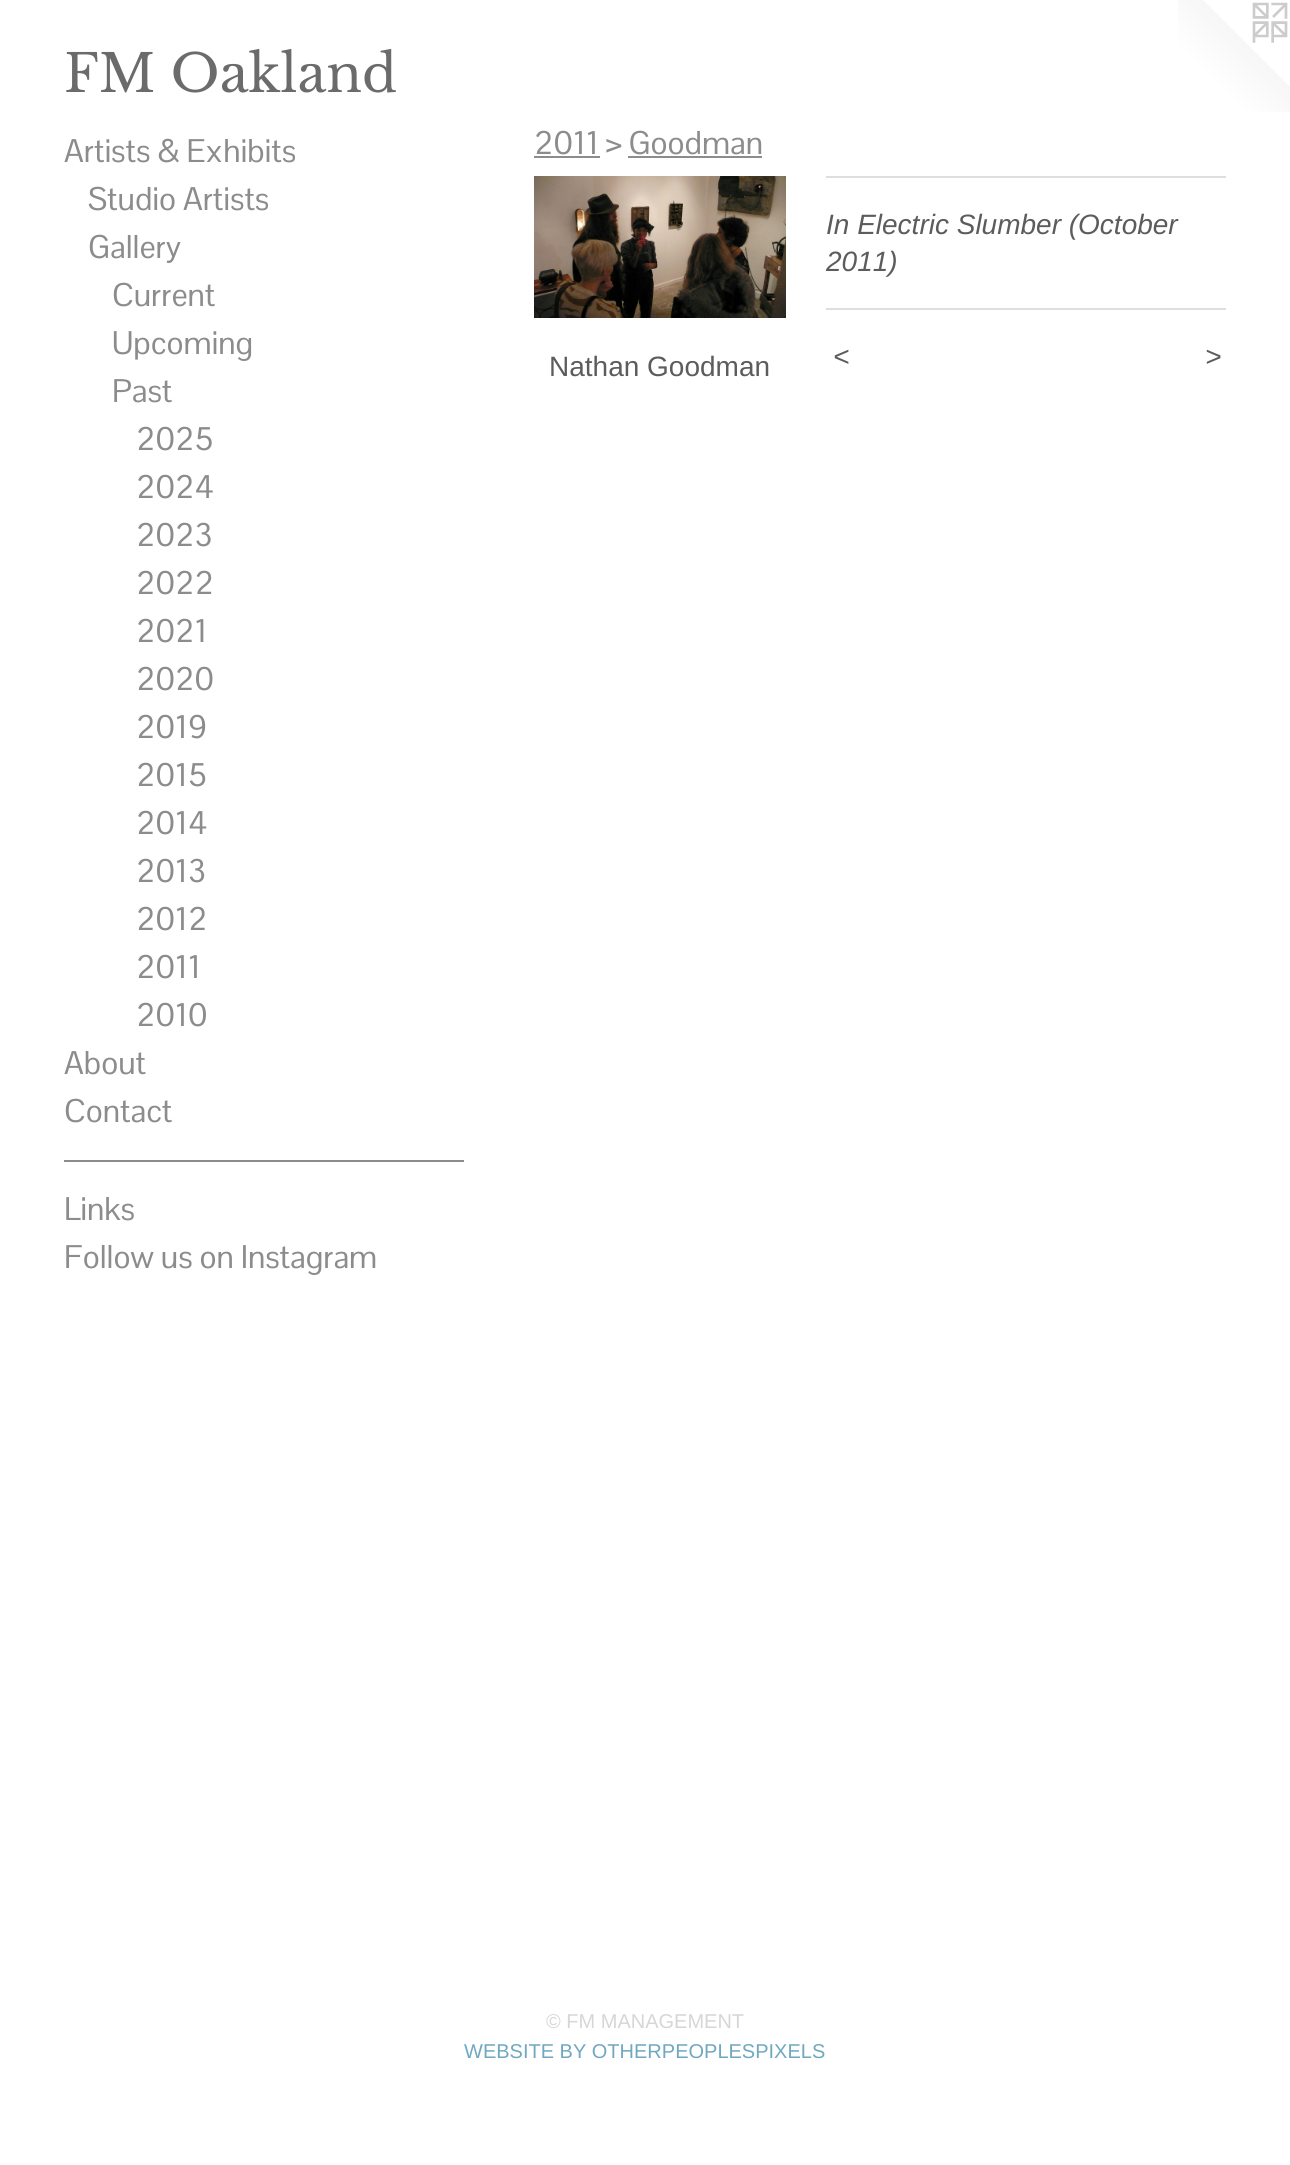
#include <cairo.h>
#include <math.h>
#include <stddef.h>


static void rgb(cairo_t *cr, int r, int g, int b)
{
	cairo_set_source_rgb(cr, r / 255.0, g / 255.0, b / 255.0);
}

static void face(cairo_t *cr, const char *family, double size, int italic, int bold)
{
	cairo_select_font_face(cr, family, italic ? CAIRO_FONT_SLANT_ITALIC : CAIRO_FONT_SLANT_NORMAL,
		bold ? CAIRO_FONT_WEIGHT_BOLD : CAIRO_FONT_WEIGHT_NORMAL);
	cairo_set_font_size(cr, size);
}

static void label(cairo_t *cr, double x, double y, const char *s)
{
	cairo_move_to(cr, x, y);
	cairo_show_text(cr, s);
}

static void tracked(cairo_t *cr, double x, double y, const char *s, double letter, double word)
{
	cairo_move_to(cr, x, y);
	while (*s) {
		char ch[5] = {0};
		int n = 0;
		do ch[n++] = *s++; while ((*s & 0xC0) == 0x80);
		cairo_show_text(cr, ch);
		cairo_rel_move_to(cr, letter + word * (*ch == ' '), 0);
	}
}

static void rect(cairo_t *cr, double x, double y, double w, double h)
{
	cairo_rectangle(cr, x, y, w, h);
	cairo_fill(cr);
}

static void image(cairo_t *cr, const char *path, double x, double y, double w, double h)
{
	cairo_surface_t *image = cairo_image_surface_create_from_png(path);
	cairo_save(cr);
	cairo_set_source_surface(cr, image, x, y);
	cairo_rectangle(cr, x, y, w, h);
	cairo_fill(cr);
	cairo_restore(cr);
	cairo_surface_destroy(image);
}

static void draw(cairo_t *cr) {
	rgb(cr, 255, 255, 255);
	cairo_paint(cr);
	face(cr, "Libre Baskerville", 52, 0, 0);
	rgb(cr, 107, 107, 107);
	label(cr, 64, 92, "FM Oakland");
	image(cr, "image0.png", 1178, 0, 112, 112);
	face(cr, "Pontano Sans", 32, 0, 0);
	rgb(cr, 140, 140, 140);
	label(cr, 64, 162, "Artists & Exhibits");
	label(cr, 88, 210, "Studio Artists");
	label(cr, 88, 258, "Gallery");
	label(cr, 112, 306, "Current");
	label(cr, 112, 354, "Upcoming");
	label(cr, 112, 402, "Past");
	label(cr, 136, 450, "2025");
	label(cr, 136, 498, "2024");
	label(cr, 136, 546, "2023");
	label(cr, 136, 594, "2022");
	label(cr, 136, 642, "2021");
	label(cr, 136, 690, "2020");
	label(cr, 136, 738, "2019");
	label(cr, 136, 786, "2015");
	label(cr, 136, 834, "2014");
	label(cr, 136, 882, "2013");
	label(cr, 136, 930, "2012");
	label(cr, 136, 978, "2011");
	label(cr, 136, 1026, "2010");
	label(cr, 64, 1074, "About");
	label(cr, 64, 1122, "Contact");
	rect(cr, 64, 1160, 400, 2);
	label(cr, 64, 1220, "Links");
	label(cr, 64, 1268, "Follow us on Instagram");
	label(cr, 534, 154, "2011 > Goodman");
	rect(cr, 534, 156, 66, 2);
	rect(cr, 628, 156, 134, 2);
	face(cr, "Liberation Sans", 28, 0, 0);
	rgb(cr, 92, 92, 92);
	label(cr, 549, 376, "Nathan Goodman");
	image(cr, "image1.png", 534, 176, 252, 142);
	rgb(cr, 222, 222, 222);
	rect(cr, 826, 176, 400, 2);
	face(cr, "Liberation Sans", 28, 1, 0);
	rgb(cr, 92, 92, 92);
	label(cr, 826, 234, "In Electric Slumber (October");
	label(cr, 826, 271, "2011)");
	rgb(cr, 222, 222, 222);
	rect(cr, 826, 308, 400, 2);
	rgb(cr, 92, 92, 92);
	tracked(cr, 833, 366, "<", 2, 0);
	tracked(cr, 1205, 366, ">", 2, 0);
	face(cr, "Liberation Sans", 20, 0, 0);
	rgb(cr, 214, 214, 214);
	label(cr, 546, 2028, "© FM MANAGEMENT");
	rgb(cr, 112, 168, 192);
	label(cr, 464, 2058, "WEBSITE BY OTHERPEOPLESPIXELS");
}

int main(void) {
	cairo_surface_t *surface = cairo_image_surface_create(CAIRO_FORMAT_RGB24, 1290, 2165);
	cairo_t *cr = cairo_create(surface);
	cairo_font_options_t *options = cairo_font_options_create();
	cairo_font_options_set_hint_metrics(options, CAIRO_HINT_METRICS_OFF);
	cairo_font_options_set_hint_style(options, CAIRO_HINT_STYLE_NONE);
	cairo_set_font_options(cr, options);
	cairo_set_miter_limit(cr, 4);
	draw(cr);
	cairo_surface_write_to_png(surface, "render.png");
	cairo_font_options_destroy(options);
	cairo_destroy(cr);
	cairo_surface_destroy(surface);
	return 0;
}
